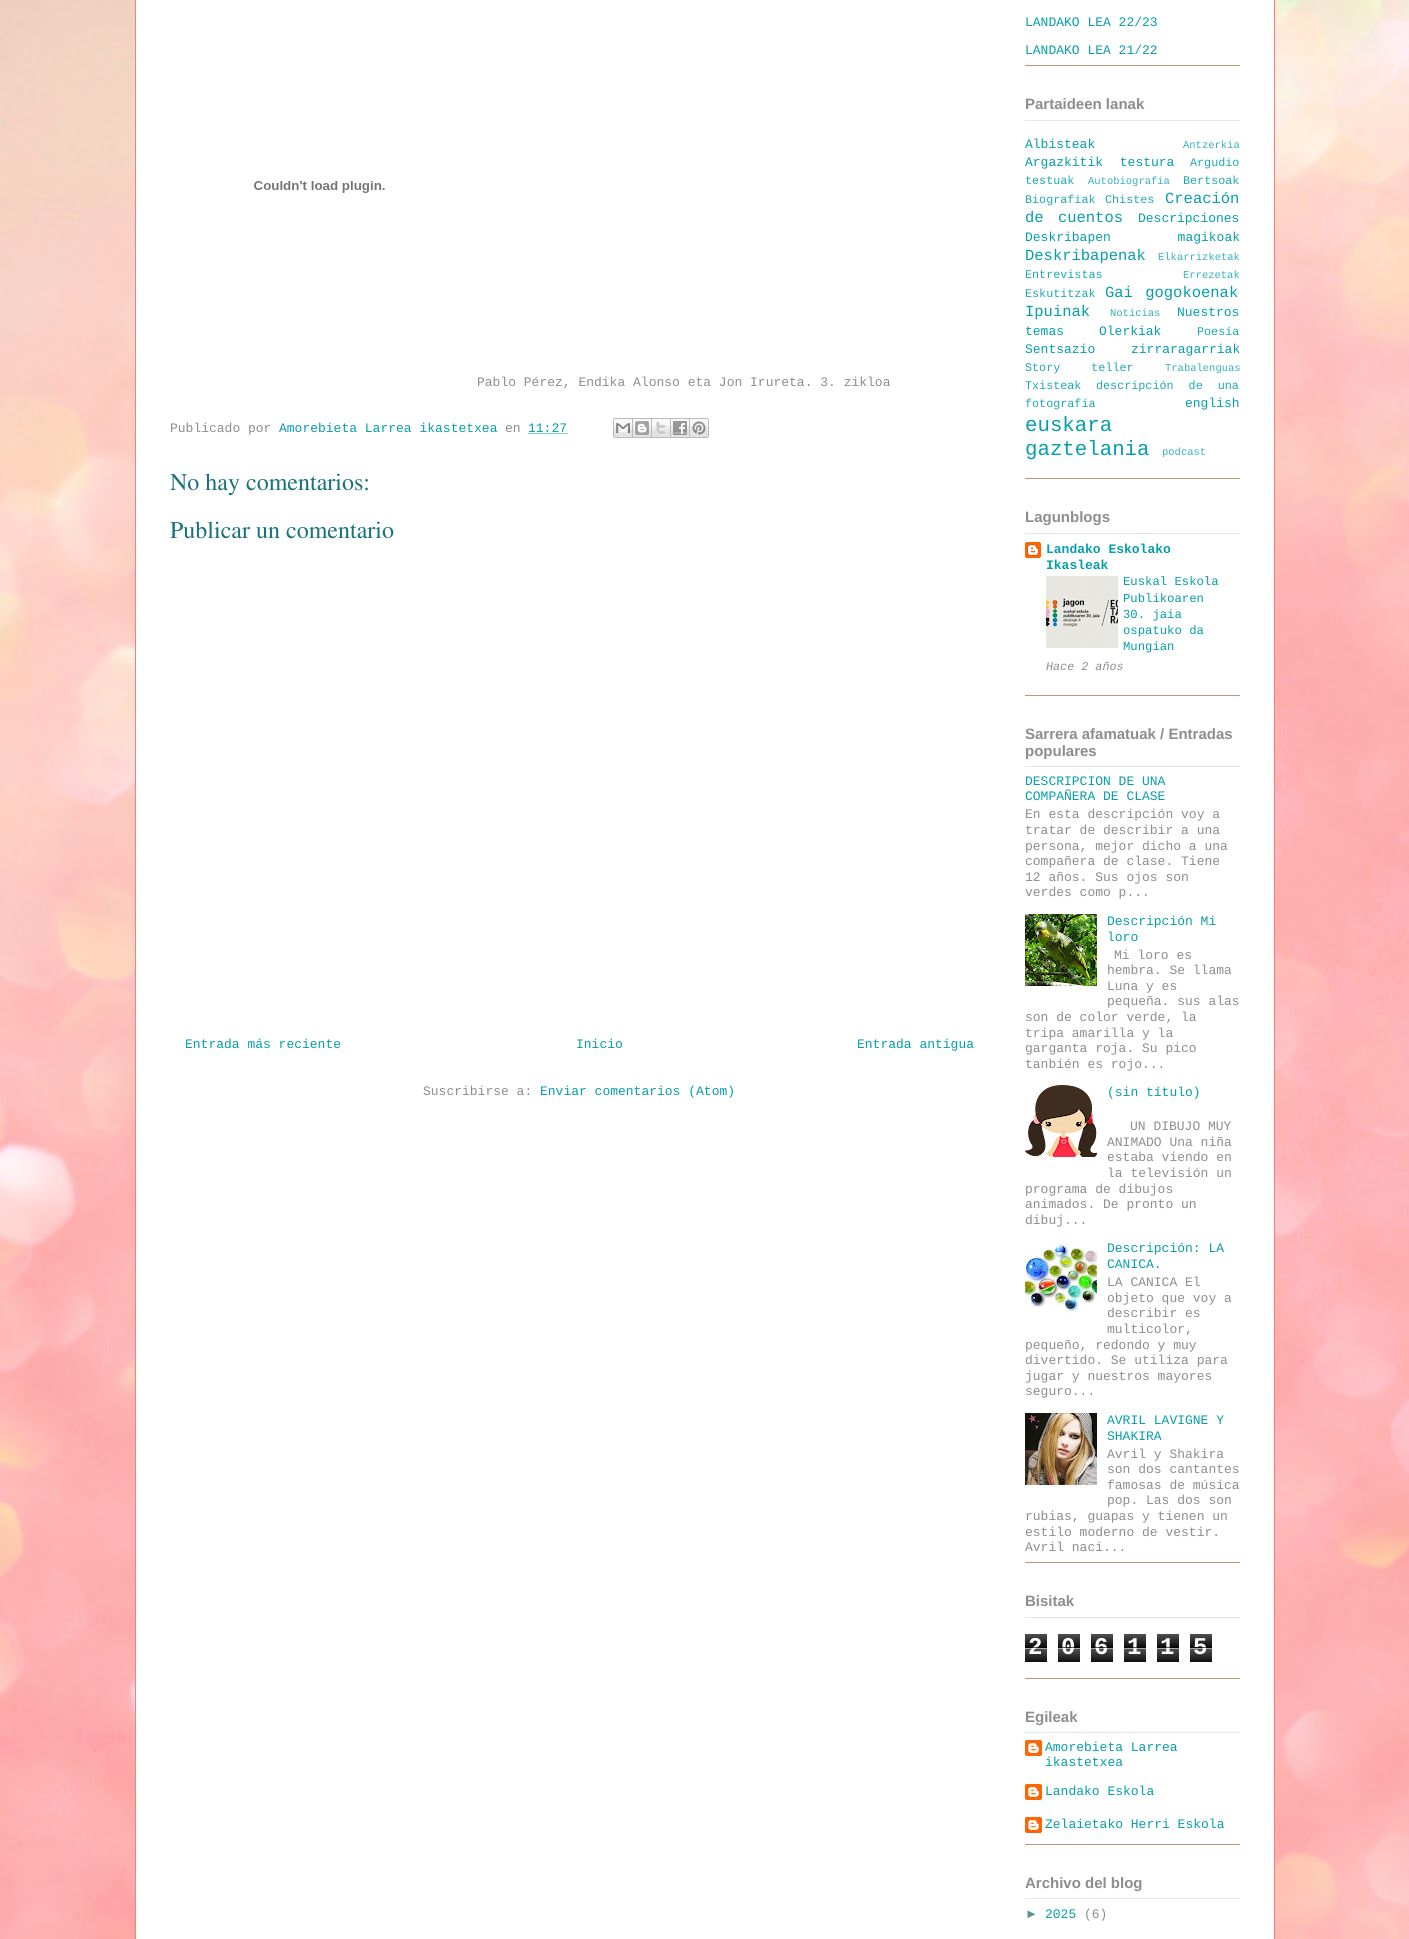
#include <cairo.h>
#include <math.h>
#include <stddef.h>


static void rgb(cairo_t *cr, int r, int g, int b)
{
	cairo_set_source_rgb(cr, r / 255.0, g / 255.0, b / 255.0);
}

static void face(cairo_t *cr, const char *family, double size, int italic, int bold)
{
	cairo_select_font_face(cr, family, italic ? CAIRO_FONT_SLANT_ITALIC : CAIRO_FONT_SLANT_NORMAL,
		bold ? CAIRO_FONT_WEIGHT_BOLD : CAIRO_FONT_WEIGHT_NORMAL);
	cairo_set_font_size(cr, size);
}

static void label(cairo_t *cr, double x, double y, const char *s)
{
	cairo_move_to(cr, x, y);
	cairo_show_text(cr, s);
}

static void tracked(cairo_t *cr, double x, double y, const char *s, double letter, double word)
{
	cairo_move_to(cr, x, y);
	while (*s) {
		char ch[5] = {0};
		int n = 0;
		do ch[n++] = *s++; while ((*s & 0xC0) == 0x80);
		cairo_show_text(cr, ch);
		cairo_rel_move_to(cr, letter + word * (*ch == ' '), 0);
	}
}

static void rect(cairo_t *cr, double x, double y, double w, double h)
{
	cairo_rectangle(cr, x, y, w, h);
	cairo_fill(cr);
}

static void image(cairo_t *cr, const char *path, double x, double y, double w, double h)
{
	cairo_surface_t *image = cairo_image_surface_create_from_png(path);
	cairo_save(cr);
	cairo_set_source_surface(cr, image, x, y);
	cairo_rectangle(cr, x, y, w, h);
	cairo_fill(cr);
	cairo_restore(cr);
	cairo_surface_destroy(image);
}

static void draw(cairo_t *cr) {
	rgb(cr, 255, 255, 255);
	cairo_paint(cr);
	image(cr, "image0.png", 0, 0, 1409, 1939);
	rgb(cr, 255, 255, 255);
	rect(cr, 136, 0, 1138, 1939);
	rgb(cr, 251, 126, 119);
	rect(cr, 1274, 0, 1, 1939);
	rect(cr, 135, 0, 1, 1939);
	image(cr, "image1.png", 254, 181, 131, 12);
	face(cr, "Liberation Mono", 13, 0, 0);
	rgb(cr, 141, 141, 141);
	label(cr, 477, 386, "Pablo Pérez, Endika Alonso eta Jon Irureta. 3. zikloa");
	label(cr, 170, 432, "Publicado por");
	rgb(cr, 5, 158, 172);
	label(cr, 279, 432, "Amorebieta Larrea ikastetxea");
	rgb(cr, 141, 141, 141);
	label(cr, 505, 432, "en");
	rgb(cr, 5, 158, 172);
	label(cr, 528, 432, "11:27");
	cairo_new_path(cr);
	cairo_move_to(cr, 528.5, 433.5);
	cairo_line_to(cr, 567.5, 433.5);
	cairo_set_line_width(cr, 1);
	cairo_set_dash(cr, (double[]){1, 1}, 2, 0);
	cairo_stroke(cr);
	image(cr, "image2.png", 613, 418, 20, 20);
	image(cr, "image3.png", 633, 418, 19, 20);
	image(cr, "image4.png", 652, 418, 19, 20);
	image(cr, "image5.png", 671, 418, 19, 20);
	image(cr, "image6.png", 690, 418, 19, 20);
	face(cr, "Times", 24, 0, 0);
	rgb(cr, 25, 114, 123);
	label(cr, 170, 490, "No hay comentarios:");
	label(cr, 170, 538, "Publicar un comentario");
	face(cr, "Liberation Mono", 13, 0, 0);
	rgb(cr, 5, 158, 172);
	label(cr, 185, 1048, "Entrada más reciente");
	label(cr, 576, 1048, "Inicio");
	label(cr, 857, 1048, "Entrada antigua");
	rgb(cr, 141, 141, 141);
	label(cr, 423, 1095, "Suscribirse a:");
	rgb(cr, 5, 158, 172);
	label(cr, 540, 1095, "Enviar comentarios (Atom)");
	rgb(cr, 199, 149, 116);
	rect(cr, 1025, 65, 215, 1);
	rgb(cr, 5, 158, 172);
	label(cr, 1025, 26, "LANDAKO LEA 22/23");
	label(cr, 1025, 54, "LANDAKO LEA 21/22");
	rgb(cr, 199, 149, 116);
	rect(cr, 1025, 478, 215, 1);
	rgb(cr, 230, 230, 230);
	rect(cr, 1025, 120, 215, 1);
	face(cr, "Liberation Sans", 15, 0, 1);
	rgb(cr, 141, 141, 141);
	label(cr, 1025, 109, "Partaideen lanak");
	face(cr, "Liberation Mono", 13, 0, 0);
	rgb(cr, 5, 158, 172);
	label(cr, 1025, 148, "Albisteak");
	face(cr, "Liberation Mono", 10.5, 0, 0);
	rgb(cr, 55, 177, 189);
	label(cr, 1183, 148, "Antzerkia");
	face(cr, "Liberation Mono", 13, 0, 0);
	rgb(cr, 5, 158, 172);
	tracked(cr, 1025, 166, "Argazkitik testura", 0, 9);
	face(cr, "Liberation Mono", 11.75, 0, 0);
	rgb(cr, 30, 168, 180);
	label(cr, 1190, 166, "Argudio");
	label(cr, 1025, 184, "testuak");
	face(cr, "Liberation Mono", 10.5, 0, 0);
	rgb(cr, 55, 177, 189);
	label(cr, 1088, 184, "Autobiografía");
	face(cr, "Liberation Mono", 11.75, 0, 0);
	rgb(cr, 30, 168, 180);
	label(cr, 1183, 184, "Bertsoak");
	label(cr, 1025, 203, "Biografiak");
	label(cr, 1105, 203, "Chistes");
	face(cr, "Liberation Mono", 15.5, 0, 0);
	rgb(cr, 5, 158, 172);
	label(cr, 1165, 203, "Creación");
	tracked(cr, 1025, 222, "de cuentos", 0, 5);
	face(cr, "Liberation Mono", 13, 0, 0);
	label(cr, 1138, 222, "Descripciones");
	tracked(cr, 1025, 241, "Deskribapen magikoak", 0, 59);
	face(cr, "Liberation Mono", 15.5, 0, 0);
	label(cr, 1025, 260, "Deskribapenak");
	face(cr, "Liberation Mono", 10.5, 0, 0);
	rgb(cr, 55, 177, 189);
	label(cr, 1158, 260, "Elkarrizketak");
	face(cr, "Liberation Mono", 11.75, 0, 0);
	rgb(cr, 30, 168, 180);
	label(cr, 1025, 278, "Entrevistas");
	face(cr, "Liberation Mono", 10.5, 0, 0);
	rgb(cr, 55, 177, 189);
	label(cr, 1183, 278, "Errezetak");
	face(cr, "Liberation Mono", 11.75, 0, 0);
	rgb(cr, 30, 168, 180);
	label(cr, 1025, 297, "Eskutitzak");
	face(cr, "Liberation Mono", 15.5, 0, 0);
	rgb(cr, 5, 158, 172);
	tracked(cr, 1105, 297, "Gai gogokoenak", 0, 3);
	label(cr, 1025, 316, "Ipuinak");
	face(cr, "Liberation Mono", 10.5, 0, 0);
	rgb(cr, 55, 177, 189);
	label(cr, 1110, 316, "Noticias");
	face(cr, "Liberation Mono", 13, 0, 0);
	rgb(cr, 5, 158, 172);
	label(cr, 1177, 316, "Nuestros");
	label(cr, 1025, 335, "temas");
	label(cr, 1099, 335, "Olerkiak");
	face(cr, "Liberation Mono", 11.75, 0, 0);
	rgb(cr, 30, 168, 180);
	label(cr, 1197, 335, "Poesía");
	face(cr, "Liberation Mono", 13, 0, 0);
	rgb(cr, 5, 158, 172);
	tracked(cr, 1025, 353, "Sentsazio zirraragarriak", 0, 28);
	face(cr, "Liberation Mono", 11.75, 0, 0);
	rgb(cr, 30, 168, 180);
	tracked(cr, 1025, 371, "Story teller", 0, 24);
	face(cr, "Liberation Mono", 10.5, 0, 0);
	rgb(cr, 55, 177, 189);
	label(cr, 1165, 371, "Trabalenguas");
	face(cr, "Liberation Mono", 11.75, 0, 0);
	rgb(cr, 30, 168, 180);
	label(cr, 1025, 389, "Txisteak");
	tracked(cr, 1096, 389, "descripción de una", 0, 8);
	label(cr, 1025, 407, "fotografía");
	face(cr, "Liberation Mono", 13, 0, 0);
	rgb(cr, 5, 158, 172);
	label(cr, 1185, 407, "english");
	face(cr, "Liberation Mono", 20.75, 0, 0);
	label(cr, 1025, 431, "euskara");
	label(cr, 1025, 455, "gaztelania");
	face(cr, "Liberation Mono", 10.5, 0, 0);
	rgb(cr, 55, 177, 189);
	label(cr, 1162, 455, "podcast");
	rgb(cr, 199, 149, 116);
	rect(cr, 1025, 695, 215, 1);
	rgb(cr, 230, 230, 230);
	rect(cr, 1025, 533, 215, 1);
	face(cr, "Liberation Sans", 15, 0, 1);
	rgb(cr, 141, 141, 141);
	label(cr, 1025, 522, "Lagunblogs");
	image(cr, "image7.png", 1025, 542, 16, 16);
	face(cr, "Liberation Mono", 13, 0, 1);
	rgb(cr, 5, 158, 172);
	label(cr, 1046, 553, "Landako Eskolako");
	label(cr, 1046, 569, "Ikasleak");
	image(cr, "image8.png", 1046, 576, 72, 72);
	face(cr, "Liberation Mono", 12.25, 0, 0);
	label(cr, 1123, 585, "Euskal Eskola");
	label(cr, 1123, 602, "Publikoaren");
	label(cr, 1123, 618, "30. jaia");
	label(cr, 1123, 634, "ospatuko da");
	label(cr, 1123, 650, "Mungian");
	face(cr, "Liberation Mono", 11.75, 1, 0);
	rgb(cr, 141, 141, 141);
	label(cr, 1046, 670, "Hace 2 años");
	rgb(cr, 199, 149, 116);
	rect(cr, 1025, 1562, 215, 1);
	rgb(cr, 230, 230, 230);
	rect(cr, 1025, 766, 215, 1);
	face(cr, "Liberation Sans", 15, 0, 1);
	rgb(cr, 141, 141, 141);
	label(cr, 1025, 739, "Sarrera afamatuak / Entradas");
	label(cr, 1025, 756, "populares");
	face(cr, "Liberation Mono", 13, 0, 0);
	rgb(cr, 5, 158, 172);
	label(cr, 1025, 785, "DESCRIPCION DE UNA");
	label(cr, 1025, 800, "COMPAÑERA DE CLASE");
	rgb(cr, 141, 141, 141);
	label(cr, 1025, 818, "En esta descripción voy a");
	label(cr, 1025, 834, "tratar de describir a una");
	label(cr, 1025, 850, "persona, mejor dicho a una");
	label(cr, 1025, 865, "compañera de clase. Tiene");
	label(cr, 1025, 881, "12 años. Sus ojos son");
	label(cr, 1025, 896, "verdes como p...");
	image(cr, "image9.png", 1025, 914, 72, 72);
	rgb(cr, 5, 158, 172);
	label(cr, 1107, 925, "Descripción Mi");
	label(cr, 1107, 941, "loro");
	rgb(cr, 141, 141, 141);
	label(cr, 1114, 959, "Mi loro es");
	label(cr, 1107, 974, "hembra. Se llama");
	label(cr, 1107, 990, "Luna y es");
	label(cr, 1107, 1005, "pequeña. sus alas");
	label(cr, 1025, 1021, "son de color verde, la");
	label(cr, 1025, 1037, "tripa amarilla y la");
	label(cr, 1025, 1052, "garganta roja. Su pico");
	label(cr, 1025, 1068, "tanbién es rojo...");
	image(cr, "image10.png", 1025, 1085, 72, 72);
	rgb(cr, 5, 158, 172);
	label(cr, 1107, 1096, "(sin título)");
	rgb(cr, 141, 141, 141);
	label(cr, 1130, 1130, "UN DIBUJO MUY");
	label(cr, 1107, 1146, "ANIMADO Una niña");
	label(cr, 1107, 1161, "estaba viendo en");
	label(cr, 1107, 1177, "la televisión un");
	label(cr, 1025, 1193, "programa de dibujos");
	label(cr, 1025, 1208, "animados. De pronto un");
	label(cr, 1025, 1224, "dibuj...");
	image(cr, "image11.png", 1025, 1241, 72, 72);
	rgb(cr, 5, 158, 172);
	label(cr, 1107, 1252, "Descripción: LA");
	label(cr, 1107, 1268, "CANICA.");
	rgb(cr, 141, 141, 141);
	label(cr, 1107, 1286, "LA CANICA El");
	label(cr, 1107, 1302, "objeto que voy a");
	label(cr, 1107, 1317, "describir es");
	label(cr, 1107, 1333, "multicolor,");
	label(cr, 1025, 1349, "pequeño, redondo y muy");
	label(cr, 1025, 1364, "divertido. Se utiliza para");
	label(cr, 1025, 1380, "jugar y nuestros mayores");
	label(cr, 1025, 1395, "seguro...");
	image(cr, "image12.png", 1025, 1413, 72, 72);
	rgb(cr, 5, 158, 172);
	label(cr, 1107, 1424, "AVRIL LAVIGNE Y");
	label(cr, 1107, 1440, "SHAKIRA");
	rgb(cr, 141, 141, 141);
	label(cr, 1107, 1458, "Avril y Shakira");
	label(cr, 1107, 1473, "son dos cantantes");
	label(cr, 1107, 1489, "famosas de música");
	label(cr, 1107, 1504, "pop. Las dos son");
	label(cr, 1025, 1520, "rubias, guapas y tienen un");
	label(cr, 1025, 1536, "estilo moderno de vestir.");
	label(cr, 1025, 1551, "Avril naci...");
	rgb(cr, 199, 149, 116);
	rect(cr, 1025, 1678, 215, 1);
	rgb(cr, 230, 230, 230);
	rect(cr, 1025, 1617, 215, 1);
	face(cr, "Liberation Sans", 15, 0, 1);
	rgb(cr, 141, 141, 141);
	label(cr, 1025, 1606, "Bisitak");
	image(cr, "image13.png", 1025, 1634, 22, 28);
	face(cr, "Liberation Mono", 24, 0, 1);
	rgb(cr, 255, 255, 255);
	label(cr, 1028, 1654, "2");
	cairo_set_source_rgba(cr, 0, 0, 0, 0.65);
	rect(cr, 1025, 1647, 22, 1);
	cairo_set_source_rgba(cr, 1, 1, 1, 0.65);
	rect(cr, 1025, 1648, 22, 1);
	image(cr, "image13.png", 1058, 1634, 22, 28);
	rgb(cr, 255, 255, 255);
	label(cr, 1061, 1654, "0");
	cairo_set_source_rgba(cr, 0, 0, 0, 0.65);
	rect(cr, 1058, 1647, 22, 1);
	cairo_set_source_rgba(cr, 1, 1, 1, 0.65);
	rect(cr, 1058, 1648, 22, 1);
	image(cr, "image13.png", 1091, 1634, 22, 28);
	rgb(cr, 255, 255, 255);
	label(cr, 1094, 1654, "6");
	cairo_set_source_rgba(cr, 0, 0, 0, 0.65);
	rect(cr, 1091, 1647, 22, 1);
	cairo_set_source_rgba(cr, 1, 1, 1, 0.65);
	rect(cr, 1091, 1648, 22, 1);
	image(cr, "image13.png", 1124, 1634, 22, 28);
	rgb(cr, 255, 255, 255);
	label(cr, 1127, 1654, "1");
	cairo_set_source_rgba(cr, 0, 0, 0, 0.65);
	rect(cr, 1124, 1647, 22, 1);
	cairo_set_source_rgba(cr, 1, 1, 1, 0.65);
	rect(cr, 1124, 1648, 22, 1);
	image(cr, "image13.png", 1157, 1634, 22, 28);
	rgb(cr, 255, 255, 255);
	label(cr, 1160, 1654, "1");
	cairo_set_source_rgba(cr, 0, 0, 0, 0.65);
	rect(cr, 1157, 1647, 22, 1);
	cairo_set_source_rgba(cr, 1, 1, 1, 0.65);
	rect(cr, 1157, 1648, 22, 1);
	image(cr, "image13.png", 1190, 1634, 22, 28);
	rgb(cr, 255, 255, 255);
	label(cr, 1193, 1654, "5");
	cairo_set_source_rgba(cr, 0, 0, 0, 0.65);
	rect(cr, 1190, 1647, 22, 1);
	cairo_set_source_rgba(cr, 1, 1, 1, 0.65);
	rect(cr, 1190, 1648, 22, 1);
	rgb(cr, 199, 149, 116);
	rect(cr, 1025, 1844, 215, 1);
	rgb(cr, 230, 230, 230);
	rect(cr, 1025, 1732, 215, 1);
	face(cr, "Liberation Sans", 15, 0, 1);
	rgb(cr, 141, 141, 141);
	label(cr, 1025, 1722, "Egileak");
	image(cr, "image14.png", 1025, 1740, 17, 16);
	face(cr, "Liberation Mono", 13, 0, 0);
	rgb(cr, 5, 158, 172);
	label(cr, 1045, 1751, "Amorebieta Larrea");
	label(cr, 1045, 1766, "ikastetxea");
	image(cr, "image14.png", 1025, 1784, 17, 16);
	label(cr, 1045, 1795, "Landako Eskola");
	image(cr, "image14.png", 1025, 1817, 17, 16);
	label(cr, 1045, 1828, "Zelaietako Herri Eskola");
	rgb(cr, 230, 230, 230);
	rect(cr, 1025, 1898, 215, 1);
	face(cr, "Liberation Sans", 15, 0, 1);
	rgb(cr, 141, 141, 141);
	label(cr, 1025, 1888, "Archivo del blog");
	face(cr, "Liberation Sans", 13, 0, 0);
	rgb(cr, 94, 145, 150);
	label(cr, 1025, 1918, "►");
	face(cr, "Liberation Mono", 13, 0, 0);
	rgb(cr, 5, 158, 172);
	label(cr, 1045, 1918, "2025");
	rgb(cr, 141, 141, 141);
	label(cr, 1084, 1918, "(6)");
}

int main(void) {
	cairo_surface_t *surface = cairo_image_surface_create(CAIRO_FORMAT_RGB24, 1409, 1939);
	cairo_t *cr = cairo_create(surface);
	cairo_font_options_t *options = cairo_font_options_create();
	cairo_font_options_set_hint_metrics(options, CAIRO_HINT_METRICS_OFF);
	cairo_font_options_set_hint_style(options, CAIRO_HINT_STYLE_NONE);
	cairo_set_font_options(cr, options);
	cairo_set_miter_limit(cr, 4);
	draw(cr);
	cairo_surface_write_to_png(surface, "render.png");
	cairo_font_options_destroy(options);
	cairo_destroy(cr);
	cairo_surface_destroy(surface);
	return 0;
}
